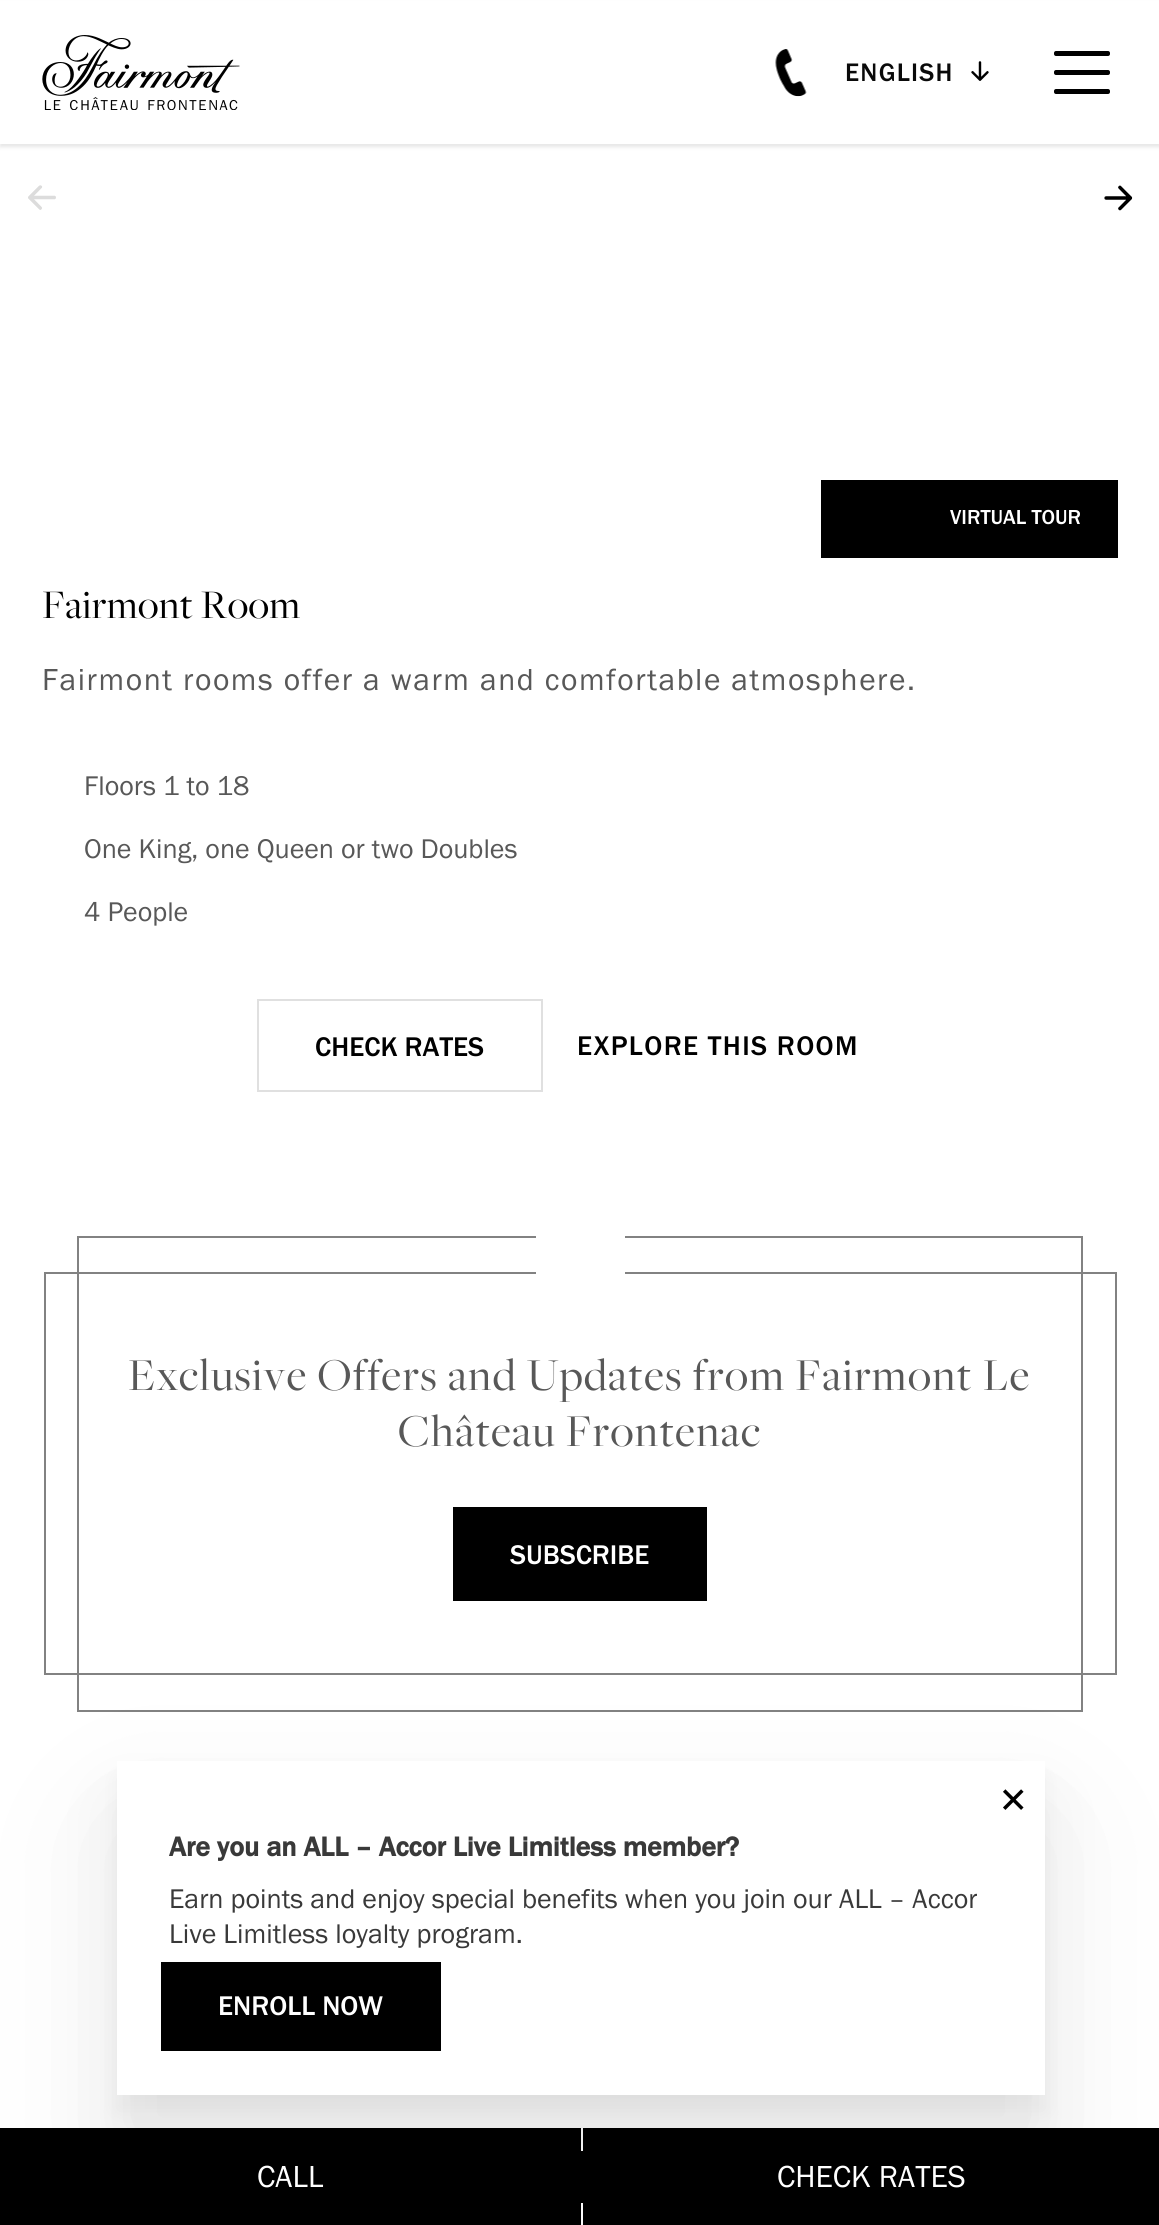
#include <cairo.h>
#include <math.h>
#include <stddef.h>


static void rgb(cairo_t *cr, int r, int g, int b)
{
	cairo_set_source_rgb(cr, r / 255.0, g / 255.0, b / 255.0);
}

static void face(cairo_t *cr, const char *family, double size, int italic, int bold)
{
	cairo_select_font_face(cr, family, italic ? CAIRO_FONT_SLANT_ITALIC : CAIRO_FONT_SLANT_NORMAL,
		bold ? CAIRO_FONT_WEIGHT_BOLD : CAIRO_FONT_WEIGHT_NORMAL);
	cairo_set_font_size(cr, size);
}

static void label(cairo_t *cr, double x, double y, const char *s)
{
	cairo_move_to(cr, x, y);
	cairo_show_text(cr, s);
}

static void tracked(cairo_t *cr, double x, double y, const char *s, double letter, double word)
{
	cairo_move_to(cr, x, y);
	while (*s) {
		char ch[5] = {0};
		int n = 0;
		do ch[n++] = *s++; while ((*s & 0xC0) == 0x80);
		cairo_show_text(cr, ch);
		cairo_rel_move_to(cr, letter + word * (*ch == ' '), 0);
	}
}

static void rect(cairo_t *cr, double x, double y, double w, double h)
{
	cairo_rectangle(cr, x, y, w, h);
	cairo_fill(cr);
}

static void rrect(cairo_t *cr, double x, double y, double w, double h, double r)
{
	cairo_new_sub_path(cr);
	cairo_arc(cr, x + w - r, y + h - r, r, 0, M_PI / 2);
	cairo_arc(cr, x + r, y + h - r, r, M_PI / 2, M_PI);
	cairo_arc(cr, x + r, y + r, r, M_PI, 1.5 * M_PI);
	cairo_arc(cr, x + w - r, y + r, r, 1.5 * M_PI, 2 * M_PI);
	cairo_close_path(cr);
}

static void soft_shadow(cairo_t *cr, double x, double y, double w, double h, double r, double blur, double alpha)
{
	cairo_push_group_with_content(cr, CAIRO_CONTENT_ALPHA);
	cairo_set_operator(cr, CAIRO_OPERATOR_SOURCE);
	for (int i = 15; i >= -15 && fmin(w, h) + blur * i / 3 > 0; i -= 2) {
		double e = blur * i / 6;
		cairo_set_source_rgba(cr, 0, 0, 0, alpha * erfc((i - 1) / 8.5) / 2);
		rrect(cr, x - e, y - e, w + 2 * e, h + 2 * e, fmax(0, fmin(r + e + blur * .6, fmin(w, h) / 2 + e)));
		cairo_fill(cr);
	}
	cairo_pattern_t *soft = cairo_pop_group(cr);
	cairo_mask(cr, soft);
	cairo_pattern_destroy(soft);
}

static void image(cairo_t *cr, const char *path, double x, double y, double w, double h)
{
	cairo_surface_t *image = cairo_image_surface_create_from_png(path);
	cairo_save(cr);
	cairo_set_source_surface(cr, image, x, y);
	cairo_rectangle(cr, x, y, w, h);
	cairo_fill(cr);
	cairo_restore(cr);
	cairo_surface_destroy(image);
}

static void draw(cairo_t *cr) {
	rgb(cr, 255, 255, 255);
	cairo_paint(cr);
	rgb(cr, 0, 0, 0);
	soft_shadow(cr, 0, 4, 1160, 143, 0, 2, 0.1);
	rgb(cr, 255, 255, 255);
	rect(cr, 0, 1, 1159, 143);
	image(cr, "image0.png", 42, 35, 198, 75);
	image(cr, "image1.png", 775, 49, 32, 48);
	image(cr, "image2.png", 971, 61, 18, 20);
	face(cr, "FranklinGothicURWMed", 26.25, 0, 0);
	rgb(cr, 10, 10, 10);
	tracked(cr, 845, 81, "ENGLISH", 1.25, 0);
	rgb(cr, 0, 0, 0);
	rrect(cr, 1054, 51, 56, 5, 2);
	cairo_fill(cr);
	rrect(cr, 1054, 70, 56, 5, 2);
	cairo_fill(cr);
	rrect(cr, 1054, 89, 56, 5, 2);
	cairo_fill(cr);
	image(cr, "image3.png", 28, 185, 28, 25);
	image(cr, "image4.png", 1104, 185, 29, 26);
	rect(cr, 821, 480, 297, 78);
	face(cr, "FranklinGothicURWMed", 21, 0, 0);
	rgb(cr, 255, 255, 255);
	label(cr, 950, 524, "VIRTUAL TOUR");
	face(cr, "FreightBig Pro", 42, 0, 0);
	rgb(cr, 0, 0, 0);
	tracked(cr, 42, 618, "Fairmont Room", 0.4, 0);
	face(cr, "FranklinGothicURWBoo", 31.5, 0, 0);
	rgb(cr, 88, 88, 88);
	tracked(cr, 42, 690, "Fairmont rooms offer a warm and comfortable atmosphere.", 1.57, 0);
	face(cr, "FranklinGothicURWBoo", 28, 0, 0);
	label(cr, 84, 795, "Floors 1 to 18");
	label(cr, 84, 858, "One King, one Queen or two Doubles");
	label(cr, 84, 921, "4 People");
	cairo_rectangle(cr, 258, 1000, 284, 91);
	rgb(cr, 224, 224, 224);
	cairo_stroke(cr);
	face(cr, "FranklinGothicURWMed", 28, 0, 0);
	rgb(cr, 0, 0, 0);
	label(cr, 315, 1056, "CHECK RATES");
	tracked(cr, 577, 1055, "EXPLORE THIS ROOM", 1.4, 0);
	cairo_rectangle(cr, 78, 1237, 1004, 474);
	rgb(cr, 130, 130, 130);
	cairo_stroke(cr);
	rgb(cr, 0, 0, 0);
	rect(cr, 453, 1507, 254, 94);
	cairo_rectangle(cr, 45, 1273, 1071, 401);
	rgb(cr, 130, 130, 130);
	cairo_stroke(cr);
	rgb(cr, 255, 255, 255);
	rect(cr, 536, 1236, 89, 38);
	face(cr, "FreightBig Pro", 47.25, 0, 0);
	rgb(cr, 88, 88, 88);
	tracked(cr, 128, 1390, "Exclusive Offers and Updates from Fairmont Le", 1.4, 0);
	tracked(cr, 398, 1446, "Château Frontenac", 1.4, 0);
	face(cr, "FranklinGothicURWMed", 28, 0, 0);
	rgb(cr, 255, 255, 255);
	label(cr, 510, 1564, "SUBSCRIBE");
	rgb(cr, 0, 0, 0);
	rect(cr, 0, 2128, 581, 97);
	rect(cr, 583, 2128, 576, 97);
	rgb(cr, 0, 0, 0);
	soft_shadow(cr, 117, 1776, 928, 335, 0, 10, 0.04);
	rgb(cr, 0, 0, 0);
	rect(cr, 581, 2151, 2, 52);
	rgb(cr, 0, 0, 0);
	soft_shadow(cr, 117, 1803, 928, 334, 0, 33.5, 0.05);
	soft_shadow(cr, 117, 1824, 928, 334, 0, 79.5, 0.07);
	rgb(cr, 255, 255, 255);
	rect(cr, 117, 1761, 928, 334);
	face(cr, "FranklinGothicURWBoo", 52, 0, 0);
	rgb(cr, 0, 0, 0);
	label(cr, 998, 1817, "×");
	face(cr, "FranklinGothicURWMed", 28, 0, 1);
	rgb(cr, 57, 57, 57);
	label(cr, 169, 1856, "Are you an ALL – Accor Live Limitless member?");
	face(cr, "FranklinGothicURWBoo", 28, 0, 0);
	label(cr, 169, 1908, "Earn points and enjoy special benefits when you join our ALL – Accor");
	label(cr, 169, 1943, "Live Limitless loyalty program.");
	rgb(cr, 0, 0, 0);
	rect(cr, 161, 1962, 280, 89);
	face(cr, "FranklinGothicURWMed", 28, 0, 0);
	rgb(cr, 255, 255, 255);
	label(cr, 218, 2015, "ENROLL NOW");
	face(cr, "FranklinGothicURWBoo", 31.5, 0, 0);
	label(cr, 257, 2187, "CALL");
	label(cr, 777, 2187, "CHECK RATES");
}

int main(void) {
	cairo_surface_t *surface = cairo_image_surface_create(CAIRO_FORMAT_RGB24, 1159, 2225);
	cairo_t *cr = cairo_create(surface);
	cairo_font_options_t *options = cairo_font_options_create();
	cairo_font_options_set_hint_metrics(options, CAIRO_HINT_METRICS_OFF);
	cairo_font_options_set_hint_style(options, CAIRO_HINT_STYLE_NONE);
	cairo_set_font_options(cr, options);
	cairo_set_miter_limit(cr, 4);
	draw(cr);
	cairo_surface_write_to_png(surface, "render.png");
	cairo_font_options_destroy(options);
	cairo_destroy(cr);
	cairo_surface_destroy(surface);
	return 0;
}
